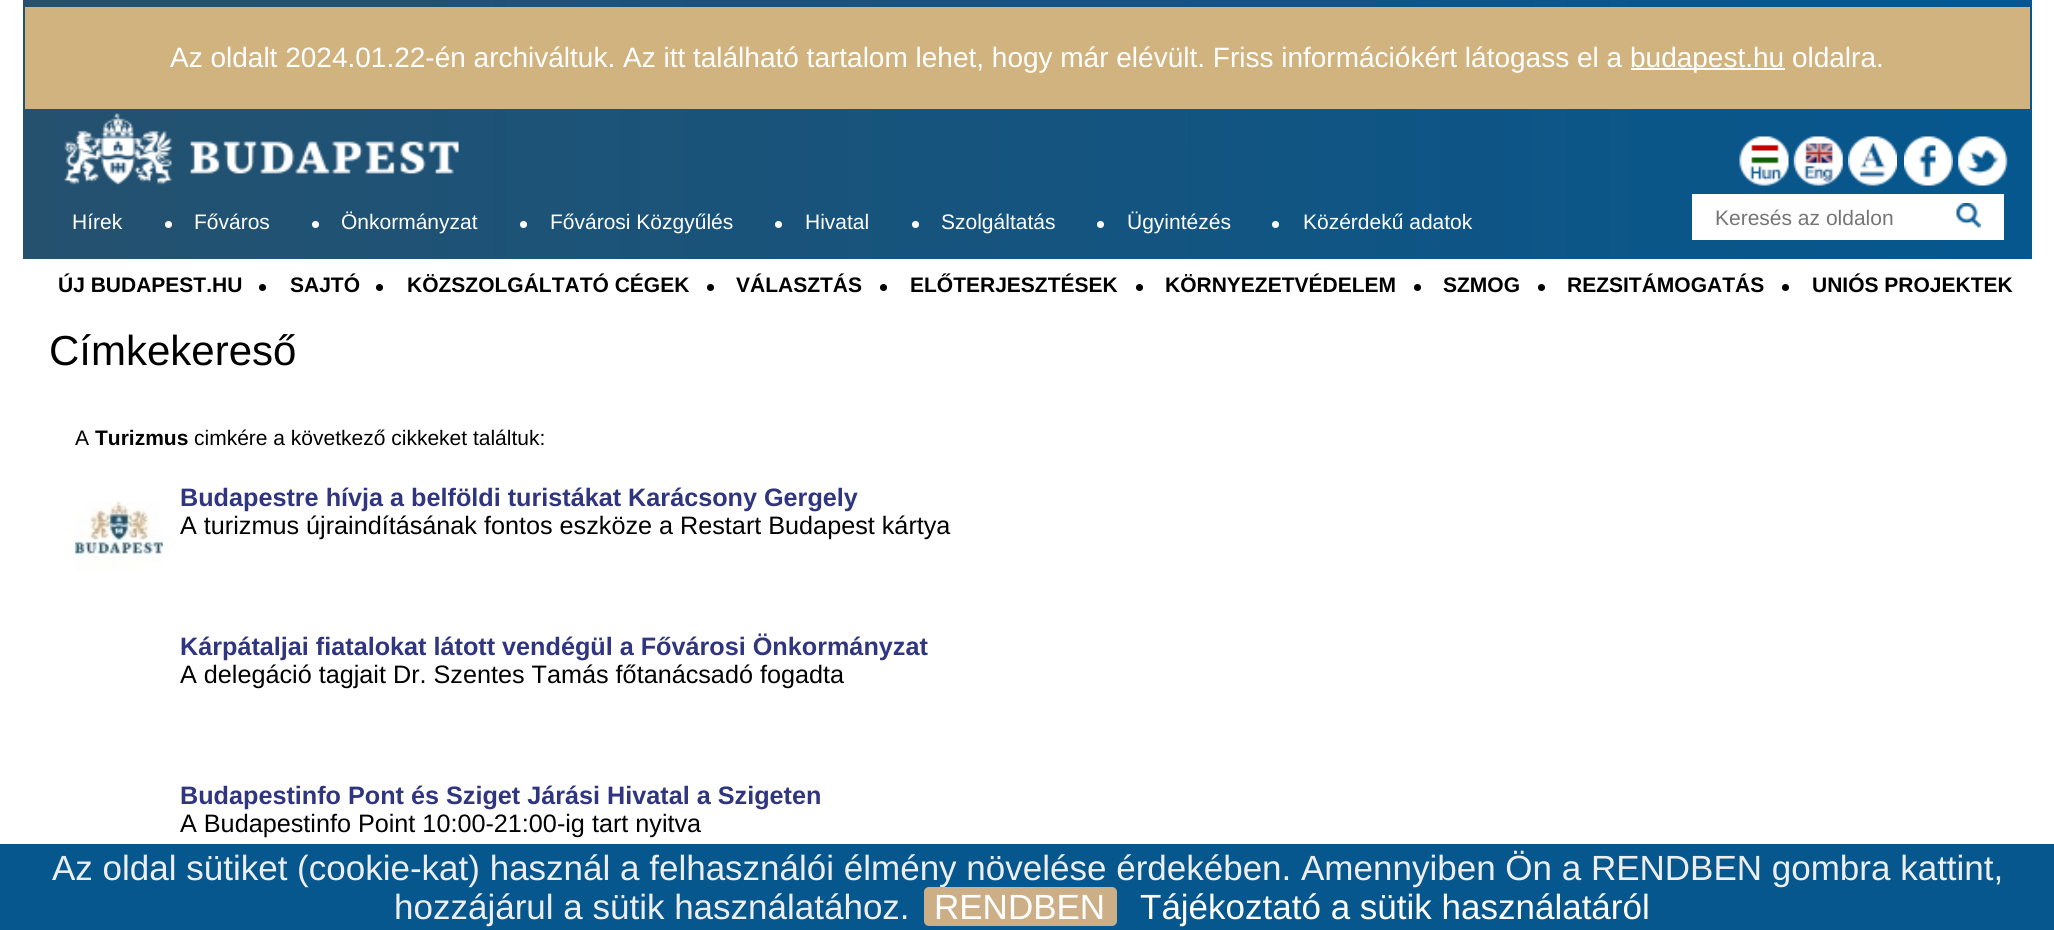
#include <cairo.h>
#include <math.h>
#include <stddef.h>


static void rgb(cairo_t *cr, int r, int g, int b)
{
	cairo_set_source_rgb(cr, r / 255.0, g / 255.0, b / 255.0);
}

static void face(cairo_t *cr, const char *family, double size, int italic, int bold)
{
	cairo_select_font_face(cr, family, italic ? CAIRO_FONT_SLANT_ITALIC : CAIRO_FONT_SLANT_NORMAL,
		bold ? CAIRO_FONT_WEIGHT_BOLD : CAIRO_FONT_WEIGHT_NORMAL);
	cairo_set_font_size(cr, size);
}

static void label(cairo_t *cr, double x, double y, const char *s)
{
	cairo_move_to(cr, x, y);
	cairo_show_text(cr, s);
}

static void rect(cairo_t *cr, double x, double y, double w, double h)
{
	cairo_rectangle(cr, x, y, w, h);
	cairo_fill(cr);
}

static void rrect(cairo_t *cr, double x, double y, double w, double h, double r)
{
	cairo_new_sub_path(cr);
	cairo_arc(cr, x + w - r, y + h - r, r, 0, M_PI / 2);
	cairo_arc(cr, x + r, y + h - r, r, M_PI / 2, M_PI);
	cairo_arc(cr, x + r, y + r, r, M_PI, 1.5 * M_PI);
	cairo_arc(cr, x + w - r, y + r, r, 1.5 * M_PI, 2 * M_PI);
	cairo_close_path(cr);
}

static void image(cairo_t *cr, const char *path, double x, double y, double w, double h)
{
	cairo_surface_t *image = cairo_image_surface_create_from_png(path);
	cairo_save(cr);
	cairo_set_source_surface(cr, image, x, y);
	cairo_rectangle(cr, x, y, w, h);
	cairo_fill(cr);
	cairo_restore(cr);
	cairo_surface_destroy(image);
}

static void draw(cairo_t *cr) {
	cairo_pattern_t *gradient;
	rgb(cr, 255, 255, 255);
	cairo_paint(cr);
	gradient = cairo_pattern_create_linear(23, 130, 2032, 129);
	cairo_pattern_add_color_stop_rgba(gradient, 0, 0.145, 0.318, 0.435, 1);
	cairo_pattern_add_color_stop_rgba(gradient, 1, 0.02, 0.341, 0.557, 1);
	cairo_set_source(cr, gradient);
	cairo_pattern_destroy(gradient);
	rect(cr, 23, 0, 2009, 259);
	rgb(cr, 209, 179, 128);
	rect(cr, 25, 7, 2005, 102);
	face(cr, "Liberation Sans", 28, 0, 0);
	rgb(cr, 255, 255, 255);
	label(cr, 170, 67, "Az oldalt 2024.01.22-én archiváltuk. Az itt található tartalom lehet, hogy már elévült. Friss információkért látogass el a");
	rect(cr, 1631, 68, 154, 2);
	label(cr, 1630, 67, "budapest.hu oldalra.");
	image(cr, "image0.png", 64, 113, 395, 72);
	image(cr, "image1.png", 1739, 136, 50, 50);
	image(cr, "image2.png", 1793, 136, 50, 50);
	image(cr, "image3.png", 1848, 136, 49, 50);
	image(cr, "image4.png", 1904, 136, 49, 50);
	image(cr, "image5.png", 1958, 136, 50, 50);
	face(cr, "Liberation Sans", 21, 0, 0);
	label(cr, 72, 229, "Hírek");
	cairo_new_path(cr);
	cairo_arc(cr, 168.5, 224.5, 3.5, 0, 2 * M_PI);
	cairo_fill(cr);
	label(cr, 194, 229, "Főváros");
	cairo_new_path(cr);
	cairo_arc(cr, 315.5, 224.5, 3.5, 0, 2 * M_PI);
	cairo_fill(cr);
	label(cr, 341, 229, "Önkormányzat");
	cairo_new_path(cr);
	cairo_arc(cr, 523.5, 224.5, 3.5, 0, 2 * M_PI);
	cairo_fill(cr);
	label(cr, 550, 229, "Fővárosi Közgyűlés");
	cairo_new_path(cr);
	cairo_arc(cr, 778.5, 224.5, 3.5, 0, 2 * M_PI);
	cairo_fill(cr);
	label(cr, 805, 229, "Hivatal");
	cairo_new_path(cr);
	cairo_arc(cr, 915.5, 224.5, 3.5, 0, 2 * M_PI);
	cairo_fill(cr);
	label(cr, 941, 229, "Szolgáltatás");
	cairo_new_path(cr);
	cairo_arc(cr, 1100.5, 224.5, 3.5, 0, 2 * M_PI);
	cairo_fill(cr);
	label(cr, 1127, 229, "Ügyintézés");
	cairo_new_path(cr);
	cairo_arc(cr, 1275.5, 224.5, 3.5, 0, 2 * M_PI);
	cairo_fill(cr);
	label(cr, 1303, 229, "Közérdekű adatok");
	rect(cr, 1692, 194, 312, 46);
	rgb(cr, 117, 117, 117);
	label(cr, 1715, 225, "Keresés az oldalon");
	image(cr, "image6.png", 1956, 203, 25, 25);
	face(cr, "Liberation Sans", 21, 0, 1);
	rgb(cr, 0, 0, 0);
	label(cr, 58, 292, "ÚJ BUDAPEST.HU");
	cairo_new_path(cr);
	cairo_arc(cr, 262.5, 287.5, 3.5, 0, 2 * M_PI);
	cairo_fill(cr);
	label(cr, 290, 292, "SAJTÓ");
	cairo_new_path(cr);
	cairo_arc(cr, 379.5, 287.5, 3.5, 0, 2 * M_PI);
	cairo_fill(cr);
	label(cr, 407, 292, "KÖZSZOLGÁLTATÓ CÉGEK");
	cairo_new_path(cr);
	cairo_arc(cr, 710.5, 287.5, 3.5, 0, 2 * M_PI);
	cairo_fill(cr);
	label(cr, 736, 292, "VÁLASZTÁS");
	cairo_new_path(cr);
	cairo_arc(cr, 883.5, 287.5, 3.5, 0, 2 * M_PI);
	cairo_fill(cr);
	label(cr, 910, 292, "ELŐTERJESZTÉSEK");
	cairo_new_path(cr);
	cairo_arc(cr, 1139.5, 287.5, 3.5, 0, 2 * M_PI);
	cairo_fill(cr);
	label(cr, 1165, 292, "KÖRNYEZETVÉDELEM");
	cairo_new_path(cr);
	cairo_arc(cr, 1417.5, 287.5, 3.5, 0, 2 * M_PI);
	cairo_fill(cr);
	label(cr, 1443, 292, "SZMOG");
	cairo_new_path(cr);
	cairo_arc(cr, 1541.5, 287.5, 3.5, 0, 2 * M_PI);
	cairo_fill(cr);
	label(cr, 1567, 292, "REZSITÁMOGATÁS");
	cairo_new_path(cr);
	cairo_arc(cr, 1785.5, 287.5, 3.5, 0, 2 * M_PI);
	cairo_fill(cr);
	label(cr, 1812, 292, "UNIÓS PROJEKTEK");
	face(cr, "Liberation Sans", 42, 0, 0);
	label(cr, 49, 365, "Címkekereső");
	face(cr, "Liberation Sans", 21, 0, 0);
	label(cr, 75, 445, "A");
	face(cr, "Liberation Sans", 21, 0, 1);
	label(cr, 95, 445, "Turizmus");
	face(cr, "Liberation Sans", 21, 0, 0);
	label(cr, 194, 445, "cimkére a következő cikkeket találtuk:");
	image(cr, "image7.png", 75, 501, 88, 71);
	face(cr, "Liberation Sans", 25.2, 0, 1);
	rgb(cr, 48, 53, 128);
	label(cr, 180, 506, "Budapestre hívja a belföldi turistákat Karácsony Gergely");
	face(cr, "Liberation Sans", 25.2, 0, 0);
	rgb(cr, 0, 0, 0);
	label(cr, 180, 534, "A turizmus újraindításának fontos eszköze a Restart Budapest kártya");
	face(cr, "Liberation Sans", 25.2, 0, 1);
	rgb(cr, 48, 53, 128);
	label(cr, 180, 655, "Kárpátaljai fiatalokat látott vendégül a Fővárosi Önkormányzat");
	face(cr, "Liberation Sans", 25.2, 0, 0);
	rgb(cr, 0, 0, 0);
	label(cr, 180, 683, "A delegáció tagjait Dr. Szentes Tamás főtanácsadó fogadta");
	face(cr, "Liberation Sans", 25.2, 0, 1);
	rgb(cr, 48, 53, 128);
	label(cr, 180, 804, "Budapestinfo Pont és Sziget Járási Hivatal a Szigeten");
	face(cr, "Liberation Sans", 25.2, 0, 0);
	rgb(cr, 0, 0, 0);
	label(cr, 180, 832, "A Budapestinfo Point 10:00-21:00-ig tart nyitva");
	rgb(cr, 5, 87, 142);
	rect(cr, 0, 844, 2054, 86);
	face(cr, "Liberation Sans", 35, 0, 0);
	rgb(cr, 238, 238, 238);
	label(cr, 52, 880, "Az oldal sütiket (cookie-kat) használ a felhasználói élmény növelése érdekében. Amennyiben Ön a RENDBEN gombra kattint,");
	label(cr, 394, 919, "hozzájárul a sütik használatához.");
	rgb(cr, 205, 175, 135);
	rrect(cr, 924, 887, 193, 39, 5);
	cairo_fill(cr);
	rgb(cr, 255, 255, 255);
	label(cr, 934, 919, "RENDBEN");
	label(cr, 1140, 919, "Tájékoztató a sütik használatáról");
}

int main(void) {
	cairo_surface_t *surface = cairo_image_surface_create(CAIRO_FORMAT_RGB24, 2054, 930);
	cairo_t *cr = cairo_create(surface);
	cairo_font_options_t *options = cairo_font_options_create();
	cairo_font_options_set_hint_metrics(options, CAIRO_HINT_METRICS_OFF);
	cairo_font_options_set_hint_style(options, CAIRO_HINT_STYLE_NONE);
	cairo_set_font_options(cr, options);
	cairo_set_miter_limit(cr, 4);
	draw(cr);
	cairo_surface_write_to_png(surface, "render.png");
	cairo_font_options_destroy(options);
	cairo_destroy(cr);
	cairo_surface_destroy(surface);
	return 0;
}
